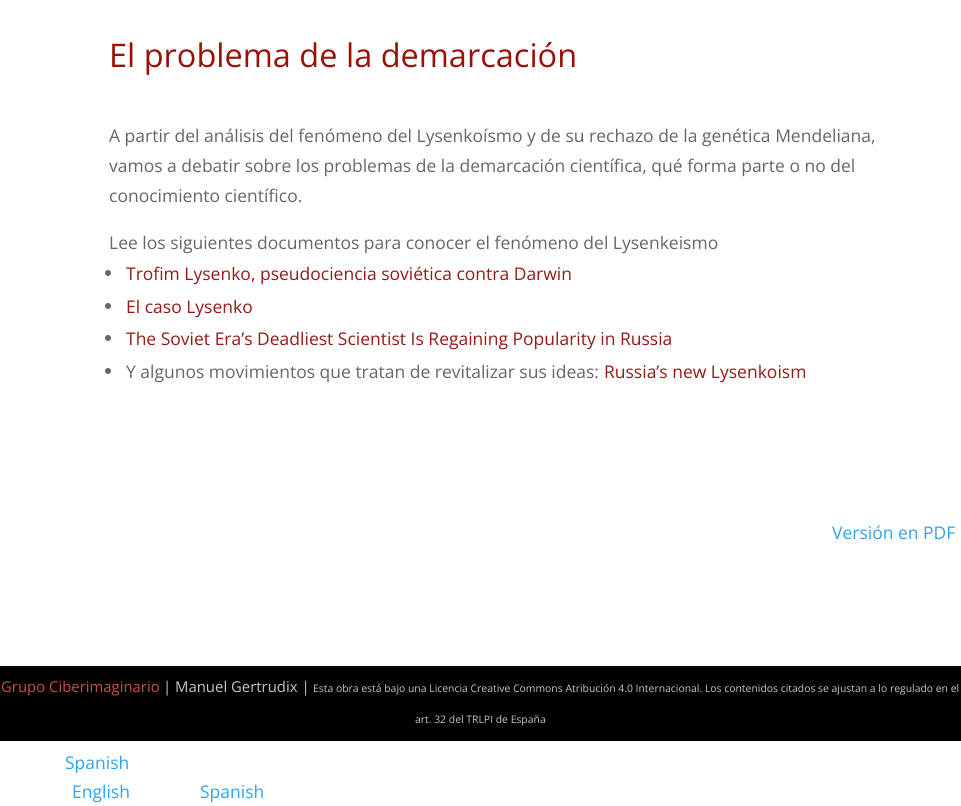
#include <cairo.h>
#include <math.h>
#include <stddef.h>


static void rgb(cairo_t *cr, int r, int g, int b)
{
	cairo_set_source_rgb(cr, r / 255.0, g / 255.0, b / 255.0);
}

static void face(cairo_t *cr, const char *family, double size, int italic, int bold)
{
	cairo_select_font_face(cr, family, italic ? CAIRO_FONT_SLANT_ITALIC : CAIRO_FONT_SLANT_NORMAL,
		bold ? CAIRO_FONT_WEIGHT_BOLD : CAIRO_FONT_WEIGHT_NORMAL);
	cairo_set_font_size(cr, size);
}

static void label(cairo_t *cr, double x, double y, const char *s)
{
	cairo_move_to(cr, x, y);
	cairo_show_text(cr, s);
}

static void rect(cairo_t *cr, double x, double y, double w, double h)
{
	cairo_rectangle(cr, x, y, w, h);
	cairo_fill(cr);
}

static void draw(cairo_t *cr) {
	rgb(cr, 255, 255, 255);
	cairo_paint(cr);
	face(cr, "Open Sans", 32.5, 0, 0);
	rgb(cr, 155, 16, 6);
	label(cr, 109, 67, "El problema de la demarcación");
	face(cr, "Open Sans", 17.5, 0, 0);
	rgb(cr, 102, 102, 102);
	label(cr, 109, 142, "A partir del análisis del fenómeno del Lysenkoísmo y de su rechazo de la genética Mendeliana,");
	label(cr, 109, 172, "vamos a debatir sobre los problemas de la demarcación científica, qué forma parte o no del");
	label(cr, 109, 202, "conocimiento científico.");
	label(cr, 109, 249, "Lee los siguientes documentos para conocer el fenómeno del Lysenkeismo");
	cairo_new_path(cr);
	cairo_arc(cr, 108, 273, 3, 0, 2 * M_PI);
	cairo_fill(cr);
	rgb(cr, 147, 27, 20);
	label(cr, 126, 280, "Trofim Lysenko, pseudociencia soviética contra Darwin");
	rgb(cr, 102, 102, 102);
	cairo_new_path(cr);
	cairo_arc(cr, 108, 306, 3, 0, 2 * M_PI);
	cairo_fill(cr);
	rgb(cr, 147, 27, 20);
	label(cr, 126, 313, "El caso Lysenko");
	rgb(cr, 102, 102, 102);
	cairo_new_path(cr);
	cairo_arc(cr, 108, 338, 3, 0, 2 * M_PI);
	cairo_fill(cr);
	rgb(cr, 147, 27, 20);
	label(cr, 126, 345, "The Soviet Era’s Deadliest Scientist Is Regaining Popularity in Russia");
	rgb(cr, 102, 102, 102);
	cairo_new_path(cr);
	cairo_arc(cr, 108, 371, 3, 0, 2 * M_PI);
	cairo_fill(cr);
	label(cr, 126, 378, "Y algunos movimientos que tratan de revitalizar sus ideas:");
	rgb(cr, 147, 27, 20);
	label(cr, 604, 378, "Russia’s new Lysenkoism");
	rgb(cr, 46, 163, 242);
	label(cr, 832, 539, "Versión en PDF");
	rgb(cr, 0, 0, 0);
	rect(cr, 0, 666, 961, 75);
	face(cr, "Open Sans", 14.9, 0, 0);
	rgb(cr, 203, 77, 77);
	label(cr, 1, 692, "Grupo Ciberimaginario");
	rgb(cr, 205, 195, 195);
	label(cr, 163, 692, "| Manuel Gertrudix |");
	face(cr, "Open Sans", 10.4, 0, 0);
	label(cr, 313, 692, "Esta obra está bajo una Licencia Creative Commons Atribución 4.0 Internacional. Los contenidos citados se ajustan a lo regulado en el");
	label(cr, 415, 723, "art. 32 del TRLPI de España");
	face(cr, "Open Sans", 17.5, 0, 0);
	rgb(cr, 46, 163, 242);
	label(cr, 65, 769, "Spanish");
	label(cr, 72, 798, "English");
	label(cr, 200, 798, "Spanish");
}

int main(void) {
	cairo_surface_t *surface = cairo_image_surface_create(CAIRO_FORMAT_RGB24, 961, 806);
	cairo_t *cr = cairo_create(surface);
	cairo_font_options_t *options = cairo_font_options_create();
	cairo_font_options_set_hint_metrics(options, CAIRO_HINT_METRICS_OFF);
	cairo_font_options_set_hint_style(options, CAIRO_HINT_STYLE_NONE);
	cairo_set_font_options(cr, options);
	cairo_set_miter_limit(cr, 4);
	draw(cr);
	cairo_surface_write_to_png(surface, "render.png");
	cairo_font_options_destroy(options);
	cairo_destroy(cr);
	cairo_surface_destroy(surface);
	return 0;
}
